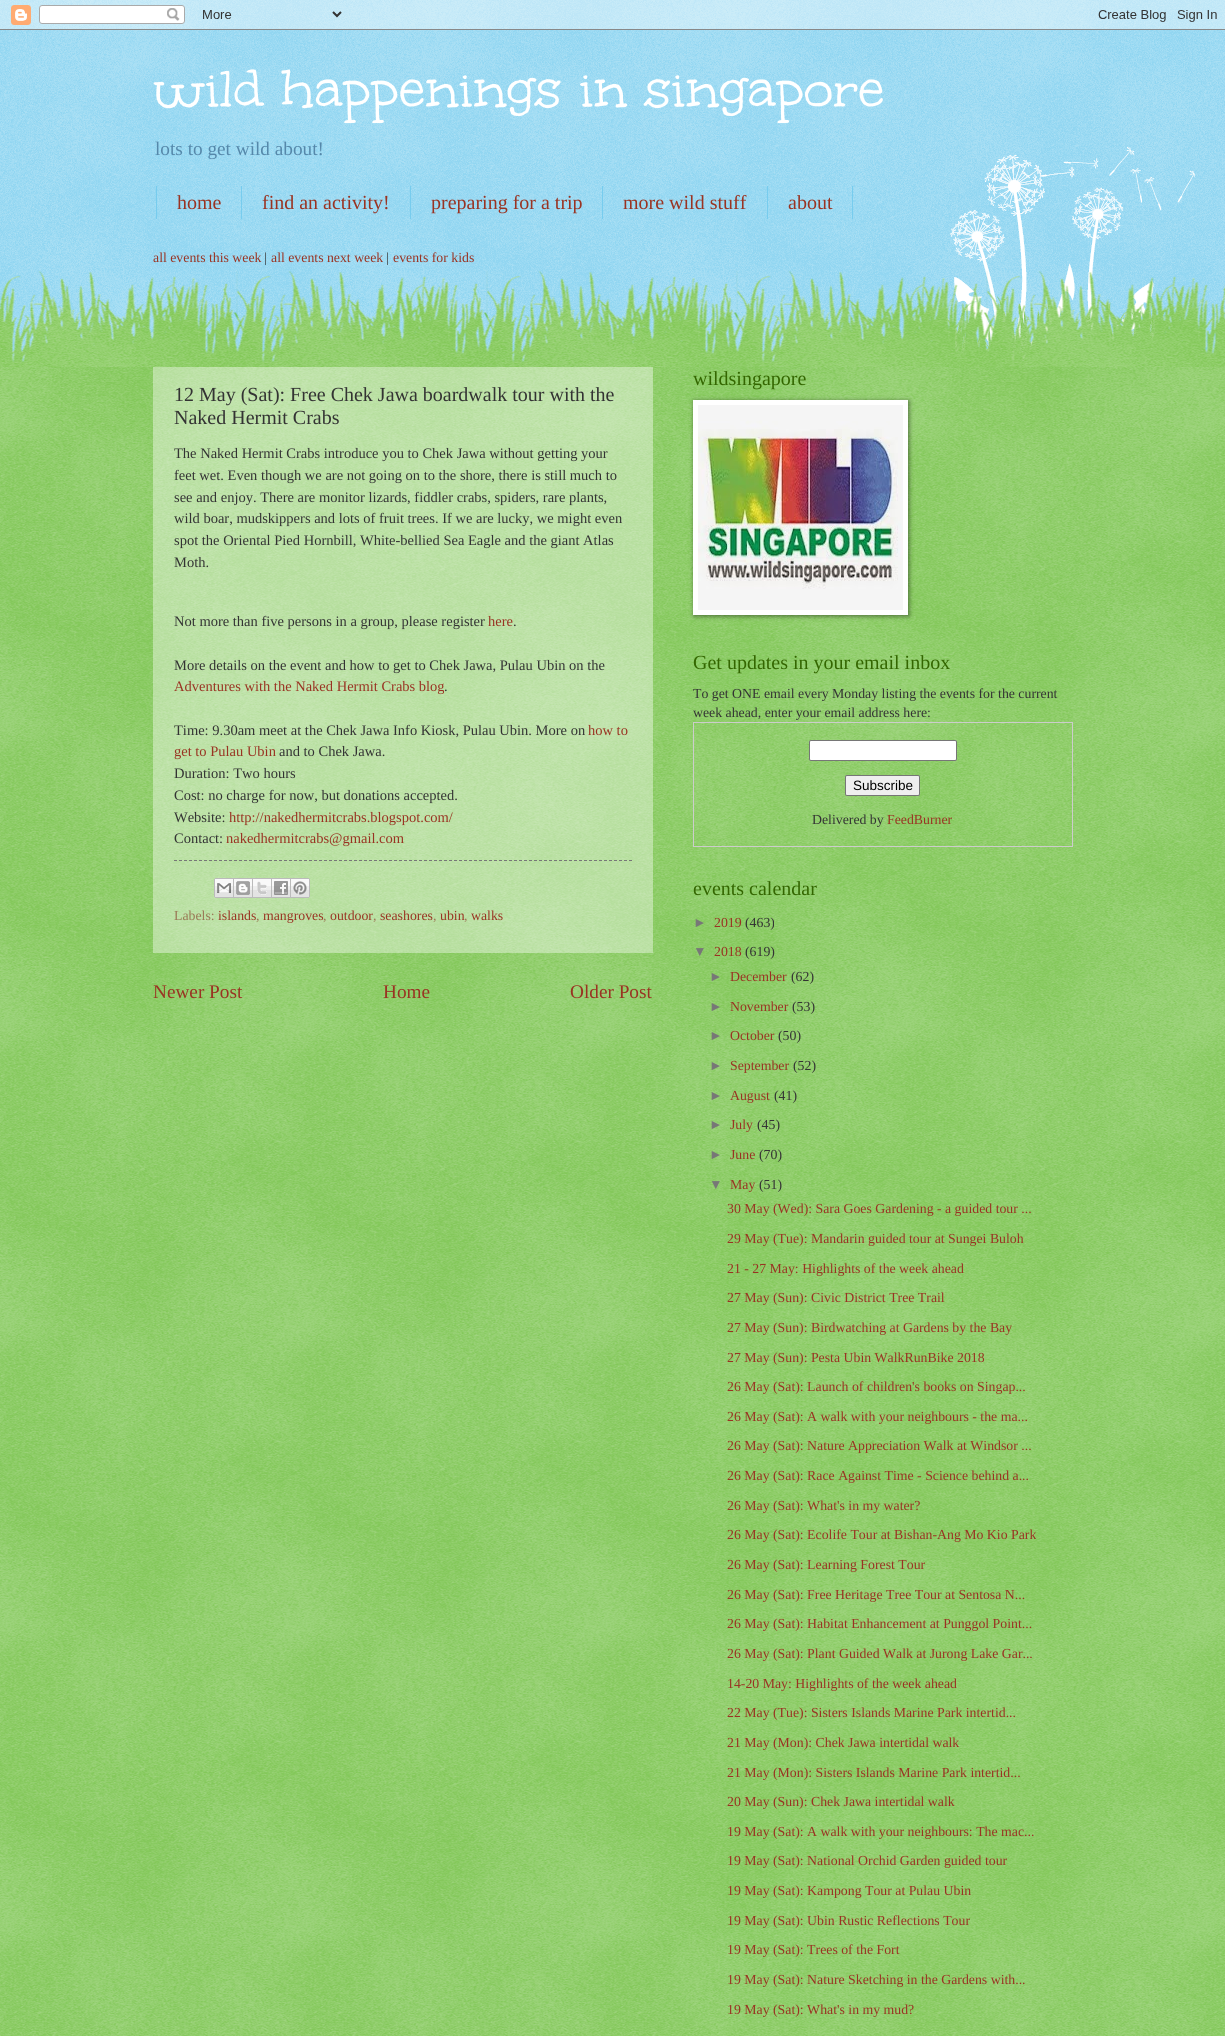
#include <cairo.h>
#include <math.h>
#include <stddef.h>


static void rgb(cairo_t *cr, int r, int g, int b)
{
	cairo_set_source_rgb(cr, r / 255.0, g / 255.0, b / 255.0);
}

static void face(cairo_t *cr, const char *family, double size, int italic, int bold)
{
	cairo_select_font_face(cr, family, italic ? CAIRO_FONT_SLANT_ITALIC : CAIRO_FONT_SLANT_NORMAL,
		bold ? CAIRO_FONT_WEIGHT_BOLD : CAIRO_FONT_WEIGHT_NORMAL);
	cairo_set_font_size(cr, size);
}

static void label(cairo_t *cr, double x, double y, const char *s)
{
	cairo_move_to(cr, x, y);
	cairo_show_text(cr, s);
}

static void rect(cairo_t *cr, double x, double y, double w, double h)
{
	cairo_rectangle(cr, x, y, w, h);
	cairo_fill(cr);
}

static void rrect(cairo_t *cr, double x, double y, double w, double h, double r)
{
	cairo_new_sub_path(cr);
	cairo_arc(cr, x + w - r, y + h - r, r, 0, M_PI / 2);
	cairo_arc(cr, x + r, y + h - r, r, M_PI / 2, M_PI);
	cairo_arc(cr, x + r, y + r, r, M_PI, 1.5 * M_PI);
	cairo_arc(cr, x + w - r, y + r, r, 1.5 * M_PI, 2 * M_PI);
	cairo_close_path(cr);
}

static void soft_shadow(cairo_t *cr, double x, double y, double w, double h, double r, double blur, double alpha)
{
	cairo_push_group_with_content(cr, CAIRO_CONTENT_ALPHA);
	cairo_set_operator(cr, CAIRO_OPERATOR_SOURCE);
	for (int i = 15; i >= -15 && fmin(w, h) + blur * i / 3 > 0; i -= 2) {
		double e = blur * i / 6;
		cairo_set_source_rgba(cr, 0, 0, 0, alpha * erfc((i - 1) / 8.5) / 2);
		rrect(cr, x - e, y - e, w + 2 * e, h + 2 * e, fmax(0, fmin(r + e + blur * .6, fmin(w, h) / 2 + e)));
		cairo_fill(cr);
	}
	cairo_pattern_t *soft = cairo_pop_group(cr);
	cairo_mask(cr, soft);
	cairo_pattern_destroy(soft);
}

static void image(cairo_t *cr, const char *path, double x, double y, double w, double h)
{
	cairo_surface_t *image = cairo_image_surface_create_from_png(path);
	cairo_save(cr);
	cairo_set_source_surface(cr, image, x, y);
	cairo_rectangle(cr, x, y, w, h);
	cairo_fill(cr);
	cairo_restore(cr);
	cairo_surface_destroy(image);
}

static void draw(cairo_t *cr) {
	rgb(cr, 119, 204, 238);
	cairo_paint(cr);
	image(cr, "image0.png", 0, 0, 1225, 362);
	image(cr, "image1.png", 0, 0, 1225, 30);
	face(cr, "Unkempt", 60, 0, 0);
	rgb(cr, 255, 255, 255);
	label(cr, 153, 110, "wild happenings in singapore");
	face(cr, "Liberation Serif", 19.25, 0, 0);
	rgb(cr, 85, 136, 170);
	label(cr, 155, 155, "lots to get wild about!");
	rgb(cr, 119, 204, 238);
	rect(cr, 241, 186, 1, 33);
	rect(cr, 156, 186, 1, 33);
	face(cr, "Liberation Serif", 20, 0, 0);
	rgb(cr, 153, 51, 34);
	label(cr, 177, 209, "home");
	rgb(cr, 119, 204, 238);
	rect(cr, 410, 186, 1, 33);
	rgb(cr, 153, 51, 34);
	label(cr, 262, 209, "find an activity!");
	rgb(cr, 119, 204, 238);
	rect(cr, 602, 186, 1, 33);
	rgb(cr, 153, 51, 34);
	label(cr, 431, 209, "preparing for a trip");
	rgb(cr, 119, 204, 238);
	rect(cr, 767, 186, 1, 33);
	rgb(cr, 153, 51, 34);
	label(cr, 623, 209, "more wild stuff");
	rgb(cr, 119, 204, 238);
	rect(cr, 852, 186, 1, 33);
	rgb(cr, 153, 51, 34);
	label(cr, 788, 209, "about");
	face(cr, "Liberation Serif", 13.8, 0, 0);
	label(cr, 153, 262, "all events this week");
	rgb(cr, 51, 51, 51);
	label(cr, 264, 262, "|");
	rgb(cr, 153, 51, 34);
	label(cr, 271, 262, "all events next week");
	rgb(cr, 51, 51, 51);
	label(cr, 386, 262, "|");
	rgb(cr, 153, 51, 34);
	label(cr, 393, 262, "events for kids");
	rgb(cr, 102, 187, 51);
	rect(cr, 0, 367, 1225, 1669);
	image(cr, "image2.png", 0, 367, 1225, 1669);
	image(cr, "image3.png", 947, 147, 248, 215);
	image(cr, "image4.png", 0, 271, 1225, 96);
	cairo_set_source_rgba(cr, 1, 1, 1, 0.4);
	rect(cr, 153, 367, 500, 586);
	face(cr, "Liberation Serif", 20, 0, 0);
	rgb(cr, 51, 51, 51);
	label(cr, 174, 401, "12 May (Sat): Free Chek Jawa boardwalk tour with the");
	label(cr, 174, 424, "Naked Hermit Crabs");
	face(cr, "Liberation Serif", 14.5, 0, 0);
	label(cr, 174, 458, "The Naked Hermit Crabs introduce you to Chek Jawa without getting your");
	label(cr, 174, 480, "feet wet. Even though we are not going on to the shore, there is still much to");
	label(cr, 174, 502, "see and enjoy. There are monitor lizards, fiddler crabs, spiders, rare plants,");
	label(cr, 174, 523, "wild boar, mudskippers and lots of fruit trees. If we are lucky, we might even");
	label(cr, 174, 545, "spot the Oriental Pied Hornbill, White-bellied Sea Eagle and the giant Atlas");
	label(cr, 174, 567, "Moth.");
	label(cr, 174, 626, "Not more than five persons in a group, please register");
	rgb(cr, 153, 51, 34);
	label(cr, 488, 626, "here");
	rgb(cr, 51, 51, 51);
	label(cr, 513, 626, ".");
	label(cr, 174, 670, "More details on the event and how to get to Chek Jawa, Pulau Ubin on the");
	rgb(cr, 153, 51, 34);
	label(cr, 174, 691, "Adventures with the Naked Hermit Crabs blog");
	rgb(cr, 51, 51, 51);
	label(cr, 444, 691, ".");
	label(cr, 174, 735, "Time: 9.30am meet at the Chek Jawa Info Kiosk, Pulau Ubin. More on");
	rgb(cr, 153, 51, 34);
	label(cr, 588, 735, "how to");
	label(cr, 174, 756, "get to Pulau Ubin");
	rgb(cr, 51, 51, 51);
	label(cr, 279, 756, "and to Chek Jawa.");
	label(cr, 174, 778, "Duration: Two hours");
	label(cr, 174, 800, "Cost: no charge for now, but donations accepted.");
	label(cr, 174, 822, "Website:");
	rgb(cr, 153, 51, 34);
	label(cr, 229, 822, "http://nakedhermitcrabs.blogspot.com/");
	rgb(cr, 51, 51, 51);
	label(cr, 174, 843, "Contact:");
	rgb(cr, 153, 51, 34);
	label(cr, 226, 843, "nakedhermitcrabs@gmail.com");
	cairo_new_path(cr);
	cairo_move_to(cr, 174, 860.5);
	cairo_line_to(cr, 632, 860.5);
	rgb(cr, 119, 119, 119);
	cairo_set_line_width(cr, 1);
	cairo_set_dash(cr, (double[]){3, 2}, 2, 0);
	cairo_stroke(cr);
	image(cr, "image5.png", 214, 878, 20, 20);
	image(cr, "image6.png", 234, 878, 19, 20);
	image(cr, "image7.png", 253, 878, 19, 20);
	image(cr, "image8.png", 272, 878, 19, 20);
	image(cr, "image9.png", 291, 878, 19, 20);
	face(cr, "Liberation Serif", 13.8, 0, 0);
	rgb(cr, 153, 119, 85);
	label(cr, 174, 920, "Labels:");
	rgb(cr, 153, 51, 34);
	label(cr, 218, 920, "islands");
	rgb(cr, 153, 119, 85);
	label(cr, 256, 920, ",");
	rgb(cr, 153, 51, 34);
	label(cr, 263, 920, "mangroves");
	rgb(cr, 153, 119, 85);
	label(cr, 323, 920, ",");
	rgb(cr, 153, 51, 34);
	label(cr, 330, 920, "outdoor");
	rgb(cr, 153, 119, 85);
	label(cr, 373, 920, ",");
	rgb(cr, 153, 51, 34);
	label(cr, 380, 920, "seashores");
	rgb(cr, 153, 119, 85);
	label(cr, 433, 920, ",");
	rgb(cr, 153, 51, 34);
	label(cr, 440, 920, "ubin");
	rgb(cr, 153, 119, 85);
	label(cr, 464, 920, ",");
	rgb(cr, 153, 51, 34);
	label(cr, 471, 920, "walks");
	face(cr, "Liberation Serif", 19.25, 0, 0);
	label(cr, 153, 998, "Newer Post");
	label(cr, 383, 998, "Home");
	label(cr, 570, 998, "Older Post");
	face(cr, "Liberation Serif", 20, 0, 0);
	rgb(cr, 51, 102, 0);
	label(cr, 693, 385, "wildsingapore");
	rgb(cr, 0, 0, 0);
	soft_shadow(cr, 694, 401, 215, 215, 0, 2.5, 0.5);
	rgb(cr, 255, 255, 255);
	rect(cr, 693, 400, 215, 215);
	image(cr, "image10.png", 698, 405, 205, 205);
	rgb(cr, 51, 102, 0);
	label(cr, 693, 669, "Get updates in your email inbox");
	face(cr, "Liberation Serif", 13.8, 0, 0);
	rgb(cr, 51, 51, 51);
	label(cr, 693, 698, "To get ONE email every Monday listing the events for the current");
	label(cr, 693, 717, "week ahead, enter your email address here:");
	cairo_rectangle(cr, 693.5, 722.5, 379, 124);
	rgb(cr, 204, 204, 204);
	cairo_set_dash(cr, NULL, 0, 0);
	cairo_stroke(cr);
	rgb(cr, 255, 255, 255);
	rrect(cr, 809.5, 740.5, 147, 20, 1.5);
	cairo_fill_preserve(cr);
	rgb(cr, 118, 118, 118);
	cairo_stroke(cr);
	rgb(cr, 239, 239, 239);
	rrect(cr, 845.5, 775.5, 74, 20, 1.5);
	cairo_fill_preserve(cr);
	rgb(cr, 118, 118, 118);
	cairo_stroke(cr);
	face(cr, "Liberation Sans", 13.5, 0, 0);
	rgb(cr, 0, 0, 0);
	label(cr, 853, 790, "Subscribe");
	face(cr, "Liberation Serif", 13.8, 0, 0);
	rgb(cr, 51, 51, 51);
	label(cr, 812, 824, "Delivered by");
	rgb(cr, 153, 51, 34);
	label(cr, 887, 824, "FeedBurner");
	face(cr, "Liberation Serif", 20, 0, 0);
	rgb(cr, 51, 102, 0);
	label(cr, 693, 895, "events calendar");
	face(cr, "Liberation Sans", 13.8, 0, 0);
	rgb(cr, 119, 119, 119);
	label(cr, 693, 927, "►");
	face(cr, "Liberation Serif", 13.8, 0, 0);
	rgb(cr, 153, 51, 34);
	label(cr, 714, 927, "2019");
	rgb(cr, 51, 51, 51);
	label(cr, 745, 927, "(463)");
	face(cr, "Liberation Sans", 13.8, 0, 0);
	rgb(cr, 119, 119, 119);
	label(cr, 693, 956, "▼");
	face(cr, "Liberation Serif", 13.8, 0, 0);
	rgb(cr, 153, 51, 34);
	label(cr, 714, 956, "2018");
	rgb(cr, 51, 51, 51);
	label(cr, 745, 956, "(619)");
	face(cr, "Liberation Sans", 13.8, 0, 0);
	rgb(cr, 119, 119, 119);
	label(cr, 709, 981, "►");
	face(cr, "Liberation Serif", 13.8, 0, 0);
	rgb(cr, 153, 51, 34);
	label(cr, 730, 981, "December");
	rgb(cr, 51, 51, 51);
	label(cr, 791, 981, "(62)");
	face(cr, "Liberation Sans", 13.8, 0, 0);
	rgb(cr, 119, 119, 119);
	label(cr, 709, 1011, "►");
	face(cr, "Liberation Serif", 13.8, 0, 0);
	rgb(cr, 153, 51, 34);
	label(cr, 730, 1011, "November");
	rgb(cr, 51, 51, 51);
	label(cr, 792, 1011, "(53)");
	face(cr, "Liberation Sans", 13.8, 0, 0);
	rgb(cr, 119, 119, 119);
	label(cr, 709, 1040, "►");
	face(cr, "Liberation Serif", 13.8, 0, 0);
	rgb(cr, 153, 51, 34);
	label(cr, 730, 1040, "October");
	rgb(cr, 51, 51, 51);
	label(cr, 778, 1040, "(50)");
	face(cr, "Liberation Sans", 13.8, 0, 0);
	rgb(cr, 119, 119, 119);
	label(cr, 709, 1070, "►");
	face(cr, "Liberation Serif", 13.8, 0, 0);
	rgb(cr, 153, 51, 34);
	label(cr, 730, 1070, "September");
	rgb(cr, 51, 51, 51);
	label(cr, 793, 1070, "(52)");
	face(cr, "Liberation Sans", 13.8, 0, 0);
	rgb(cr, 119, 119, 119);
	label(cr, 709, 1100, "►");
	face(cr, "Liberation Serif", 13.8, 0, 0);
	rgb(cr, 153, 51, 34);
	label(cr, 730, 1100, "August");
	rgb(cr, 51, 51, 51);
	label(cr, 774, 1100, "(41)");
	face(cr, "Liberation Sans", 13.8, 0, 0);
	rgb(cr, 119, 119, 119);
	label(cr, 709, 1129, "►");
	face(cr, "Liberation Serif", 13.8, 0, 0);
	rgb(cr, 153, 51, 34);
	label(cr, 730, 1129, "July");
	rgb(cr, 51, 51, 51);
	label(cr, 757, 1129, "(45)");
	face(cr, "Liberation Sans", 13.8, 0, 0);
	rgb(cr, 119, 119, 119);
	label(cr, 709, 1159, "►");
	face(cr, "Liberation Serif", 13.8, 0, 0);
	rgb(cr, 153, 51, 34);
	label(cr, 730, 1159, "June");
	rgb(cr, 51, 51, 51);
	label(cr, 759, 1159, "(70)");
	face(cr, "Liberation Sans", 13.8, 0, 0);
	rgb(cr, 119, 119, 119);
	label(cr, 709, 1189, "▼");
	face(cr, "Liberation Serif", 13.8, 0, 0);
	rgb(cr, 153, 51, 34);
	label(cr, 730, 1189, "May");
	rgb(cr, 51, 51, 51);
	label(cr, 759, 1189, "(51)");
	rgb(cr, 153, 51, 34);
	label(cr, 727, 1213, "30 May (Wed): Sara Goes Gardening - a guided tour ...");
	label(cr, 727, 1243, "29 May (Tue): Mandarin guided tour at Sungei Buloh");
	label(cr, 727, 1273, "21 - 27 May: Highlights of the week ahead");
	label(cr, 727, 1302, "27 May (Sun): Civic District Tree Trail");
	label(cr, 727, 1332, "27 May (Sun): Birdwatching at Gardens by the Bay");
	label(cr, 727, 1362, "27 May (Sun): Pesta Ubin WalkRunBike 2018");
	label(cr, 727, 1391, "26 May (Sat): Launch of children's books on Singap...");
	label(cr, 727, 1421, "26 May (Sat): A walk with your neighbours - the ma...");
	label(cr, 727, 1450, "26 May (Sat): Nature Appreciation Walk at Windsor ...");
	label(cr, 727, 1480, "26 May (Sat): Race Against Time - Science behind a...");
	label(cr, 727, 1510, "26 May (Sat): What's in my water?");
	label(cr, 727, 1539, "26 May (Sat): Ecolife Tour at Bishan-Ang Mo Kio Park");
	label(cr, 727, 1569, "26 May (Sat): Learning Forest Tour");
	label(cr, 727, 1599, "26 May (Sat): Free Heritage Tree Tour at Sentosa N...");
	label(cr, 727, 1628, "26 May (Sat): Habitat Enhancement at Punggol Point...");
	label(cr, 727, 1658, "26 May (Sat): Plant Guided Walk at Jurong Lake Gar...");
	label(cr, 727, 1688, "14-20 May: Highlights of the week ahead");
	label(cr, 727, 1717, "22 May (Tue): Sisters Islands Marine Park intertid...");
	label(cr, 727, 1747, "21 May (Mon): Chek Jawa intertidal walk");
	label(cr, 727, 1777, "21 May (Mon): Sisters Islands Marine Park intertid...");
	label(cr, 727, 1806, "20 May (Sun): Chek Jawa intertidal walk");
	label(cr, 727, 1836, "19 May (Sat): A walk with your neighbours: The mac...");
	label(cr, 727, 1865, "19 May (Sat): National Orchid Garden guided tour");
	label(cr, 727, 1895, "19 May (Sat): Kampong Tour at Pulau Ubin");
	label(cr, 727, 1925, "19 May (Sat): Ubin Rustic Reflections Tour");
	label(cr, 727, 1954, "19 May (Sat): Trees of the Fort");
	label(cr, 727, 1984, "19 May (Sat): Nature Sketching in the Gardens with...");
	label(cr, 727, 2014, "19 May (Sat): What's in my mud?");
}

int main(void) {
	cairo_surface_t *surface = cairo_image_surface_create(CAIRO_FORMAT_RGB24, 1225, 2036);
	cairo_t *cr = cairo_create(surface);
	cairo_font_options_t *options = cairo_font_options_create();
	cairo_font_options_set_hint_metrics(options, CAIRO_HINT_METRICS_OFF);
	cairo_font_options_set_hint_style(options, CAIRO_HINT_STYLE_NONE);
	cairo_set_font_options(cr, options);
	cairo_set_miter_limit(cr, 4);
	draw(cr);
	cairo_surface_write_to_png(surface, "render.png");
	cairo_font_options_destroy(options);
	cairo_destroy(cr);
	cairo_surface_destroy(surface);
	return 0;
}
